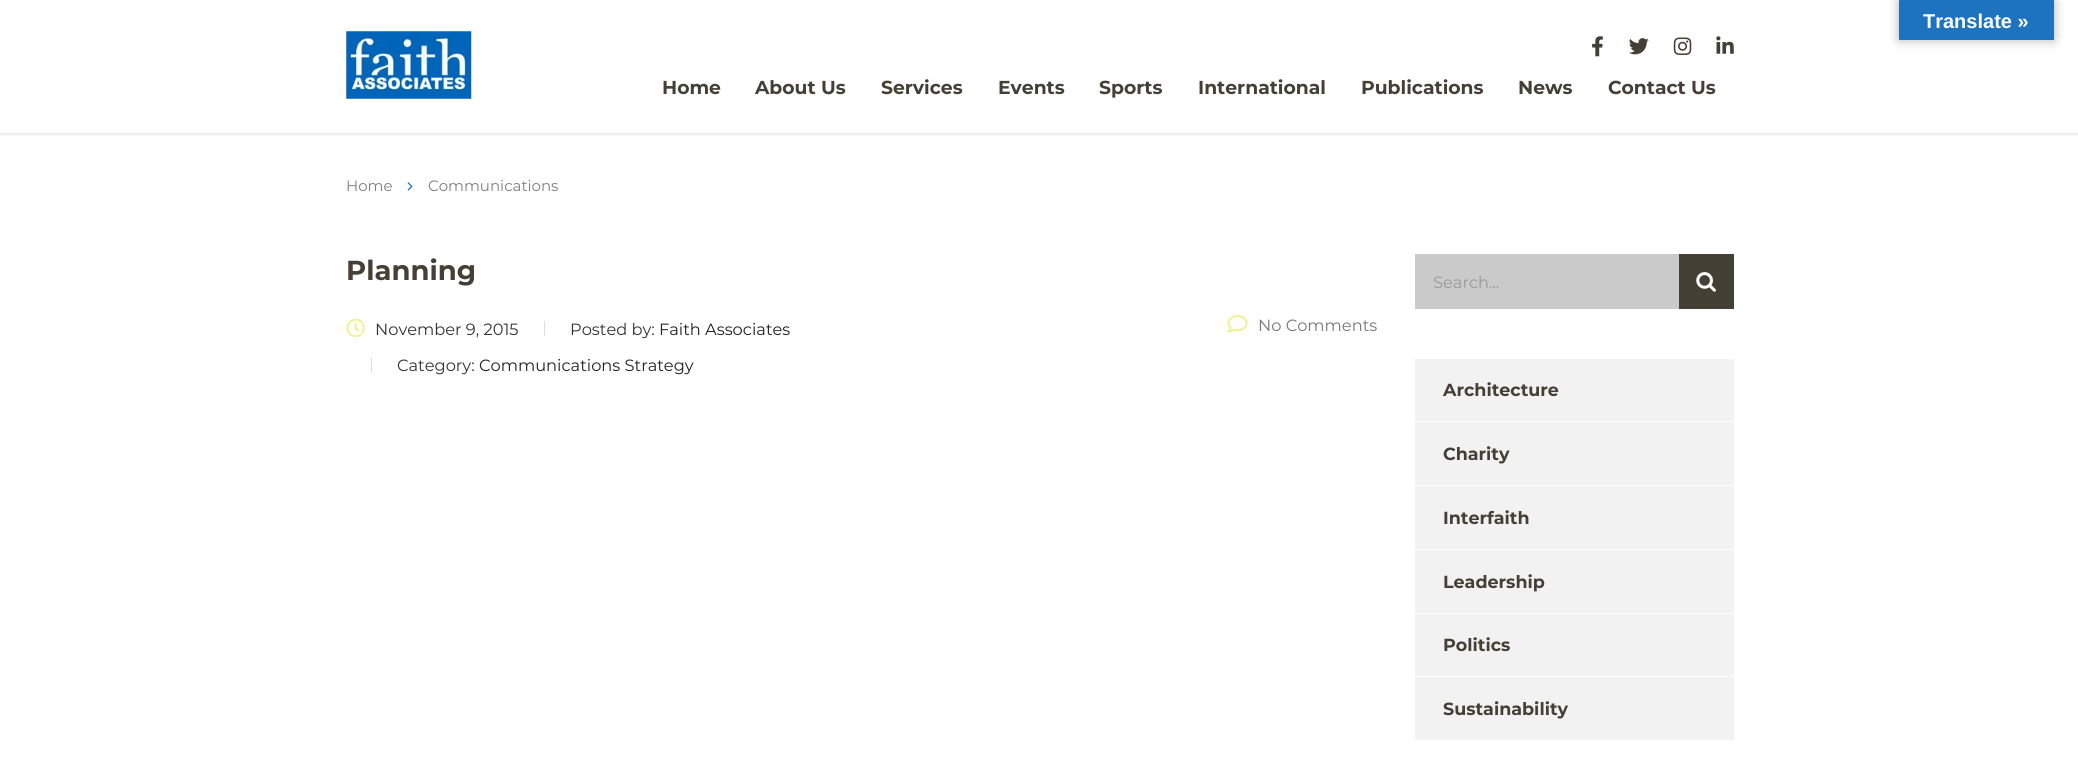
#include <cairo.h>
#include <math.h>
#include <stddef.h>


static void rgb(cairo_t *cr, int r, int g, int b)
{
	cairo_set_source_rgb(cr, r / 255.0, g / 255.0, b / 255.0);
}

static void face(cairo_t *cr, const char *family, double size, int italic, int bold)
{
	cairo_select_font_face(cr, family, italic ? CAIRO_FONT_SLANT_ITALIC : CAIRO_FONT_SLANT_NORMAL,
		bold ? CAIRO_FONT_WEIGHT_BOLD : CAIRO_FONT_WEIGHT_NORMAL);
	cairo_set_font_size(cr, size);
}

static void label(cairo_t *cr, double x, double y, const char *s)
{
	cairo_move_to(cr, x, y);
	cairo_show_text(cr, s);
}

static void rect(cairo_t *cr, double x, double y, double w, double h)
{
	cairo_rectangle(cr, x, y, w, h);
	cairo_fill(cr);
}

static void rrect(cairo_t *cr, double x, double y, double w, double h, double r)
{
	cairo_new_sub_path(cr);
	cairo_arc(cr, x + w - r, y + h - r, r, 0, M_PI / 2);
	cairo_arc(cr, x + r, y + h - r, r, M_PI / 2, M_PI);
	cairo_arc(cr, x + r, y + r, r, M_PI, 1.5 * M_PI);
	cairo_arc(cr, x + w - r, y + r, r, 1.5 * M_PI, 2 * M_PI);
	cairo_close_path(cr);
}

static void soft_shadow(cairo_t *cr, double x, double y, double w, double h, double r, double blur, double alpha)
{
	cairo_push_group_with_content(cr, CAIRO_CONTENT_ALPHA);
	cairo_set_operator(cr, CAIRO_OPERATOR_SOURCE);
	for (int i = 15; i >= -15 && fmin(w, h) + blur * i / 3 > 0; i -= 2) {
		double e = blur * i / 6;
		cairo_set_source_rgba(cr, 0, 0, 0, alpha * erfc((i - 1) / 8.5) / 2);
		rrect(cr, x - e, y - e, w + 2 * e, h + 2 * e, fmax(0, fmin(r + e + blur * .6, fmin(w, h) / 2 + e)));
		cairo_fill(cr);
	}
	cairo_pattern_t *soft = cairo_pop_group(cr);
	cairo_mask(cr, soft);
	cairo_pattern_destroy(soft);
}

static void image(cairo_t *cr, const char *path, double x, double y, double w, double h)
{
	cairo_surface_t *image = cairo_image_surface_create_from_png(path);
	cairo_save(cr);
	cairo_set_source_surface(cr, image, x, y);
	cairo_rectangle(cr, x, y, w, h);
	cairo_fill(cr);
	cairo_restore(cr);
	cairo_surface_destroy(image);
}

static void draw(cairo_t *cr) {
	rgb(cr, 255, 255, 255);
	cairo_paint(cr);
	rgb(cr, 0, 0, 0);
	soft_shadow(cr, 1899, 0, 155, 40, 0, 5.5, 0.3);
	cairo_save(cr);
	cairo_set_fill_rule(cr, CAIRO_FILL_RULE_EVEN_ODD);
	cairo_new_path(cr);
	cairo_move_to(cr, 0, 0);
	cairo_line_to(cr, 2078, 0);
	cairo_line_to(cr, 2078, 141);
	cairo_line_to(cr, 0, 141);
	cairo_close_path(cr);
	cairo_move_to(cr, 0, 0);
	cairo_line_to(cr, 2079, 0);
	cairo_line_to(cr, 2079, 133);
	cairo_line_to(cr, 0, 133);
	cairo_close_path(cr);
	cairo_clip(cr);
	soft_shadow(cr, 0, 1, 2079, 133, 0, 2, 0.15);
	cairo_restore(cr);
	rgb(cr, 30, 115, 190);
	rect(cr, 1899, 0, 155, 40);
	face(cr, "Liberation Sans", 20, 0, 1);
	rgb(cr, 255, 255, 255);
	label(cr, 1923, 28, "Translate »");
	cairo_set_source_rgba(cr, 1, 1, 1, 0.3);
	rect(cr, 0, 132, 2078, 1);
	image(cr, "image0.png", 346, 31, 126, 68);
	image(cr, "image1.png", 1592, 36, 11, 21);
	image(cr, "image2.png", 1629, 38, 20, 17);
	image(cr, "image3.png", 1673, 37, 19, 18);
	image(cr, "image4.png", 1716, 36, 18, 18);
	face(cr, "Montserrat", 18.75, 0, 1);
	rgb(cr, 68, 64, 54);
	label(cr, 662, 94, "Home");
	label(cr, 755, 94, "About Us");
	label(cr, 881, 94, "Services");
	label(cr, 998, 94, "Events");
	label(cr, 1099, 94, "Sports");
	label(cr, 1198, 94, "International");
	label(cr, 1361, 94, "Publications");
	label(cr, 1518, 94, "News");
	label(cr, 1608, 94, "Contact Us");
	face(cr, "Montserrat", 15, 0, 0);
	rgb(cr, 128, 128, 128);
	label(cr, 346, 191, "Home");
	image(cr, "image5.png", 407, 182, 6, 9);
	label(cr, 428, 191, "Communications");
	face(cr, "Montserrat", 27.5, 0, 1);
	rgb(cr, 68, 64, 54);
	label(cr, 346, 280, "Planning");
	image(cr, "image6.png", 346, 318, 19, 19);
	face(cr, "Montserrat", 16.25, 0, 0);
	rgb(cr, 51, 51, 51);
	label(cr, 375, 335, "November 9, 2015");
	rgb(cr, 221, 221, 221);
	rect(cr, 544, 321, 1, 15);
	rgb(cr, 51, 51, 51);
	label(cr, 570, 335, "Posted by:");
	rgb(cr, 34, 34, 34);
	label(cr, 659, 335, "Faith Associates");
	rgb(cr, 221, 221, 221);
	rect(cr, 371, 358, 1, 15);
	rgb(cr, 51, 51, 51);
	label(cr, 397, 371, "Category:");
	rgb(cr, 34, 34, 34);
	label(cr, 479, 371, "Communications Strategy");
	image(cr, "image7.png", 1227, 315, 21, 18);
	rgb(cr, 119, 119, 119);
	label(cr, 1258, 331, "No Comments");
	rgb(cr, 202, 202, 202);
	rect(cr, 1415, 254, 264, 55);
	rgb(cr, 153, 153, 153);
	label(cr, 1433, 288, "Search...");
	rgb(cr, 68, 64, 54);
	rect(cr, 1679, 254, 55, 55);
	image(cr, "image8.png", 1696, 272, 20, 20);
	rgb(cr, 242, 242, 242);
	rect(cr, 1415, 359, 319, 126);
	rgb(cr, 255, 255, 255);
	rect(cr, 1415, 421, 319, 1);
	face(cr, "Montserrat", 17.5, 0, 1);
	rgb(cr, 68, 64, 54);
	label(cr, 1443, 396, "Architecture");
	label(cr, 1443, 460, "Charity");
	rgb(cr, 242, 242, 242);
	rect(cr, 1415, 486, 319, 63);
	rgb(cr, 68, 64, 54);
	label(cr, 1443, 524, "Interfaith");
	rgb(cr, 242, 242, 242);
	rect(cr, 1415, 550, 319, 63);
	rgb(cr, 68, 64, 54);
	label(cr, 1443, 588, "Leadership");
	rgb(cr, 242, 242, 242);
	rect(cr, 1415, 614, 319, 126);
	rgb(cr, 255, 255, 255);
	rect(cr, 1415, 676, 319, 1);
	rgb(cr, 68, 64, 54);
	label(cr, 1443, 651, "Politics");
	label(cr, 1443, 715, "Sustainability");
}

int main(void) {
	cairo_surface_t *surface = cairo_image_surface_create(CAIRO_FORMAT_RGB24, 2078, 775);
	cairo_t *cr = cairo_create(surface);
	cairo_font_options_t *options = cairo_font_options_create();
	cairo_font_options_set_hint_metrics(options, CAIRO_HINT_METRICS_OFF);
	cairo_font_options_set_hint_style(options, CAIRO_HINT_STYLE_NONE);
	cairo_set_font_options(cr, options);
	cairo_set_miter_limit(cr, 4);
	draw(cr);
	cairo_surface_write_to_png(surface, "render.png");
	cairo_font_options_destroy(options);
	cairo_destroy(cr);
	cairo_surface_destroy(surface);
	return 0;
}
